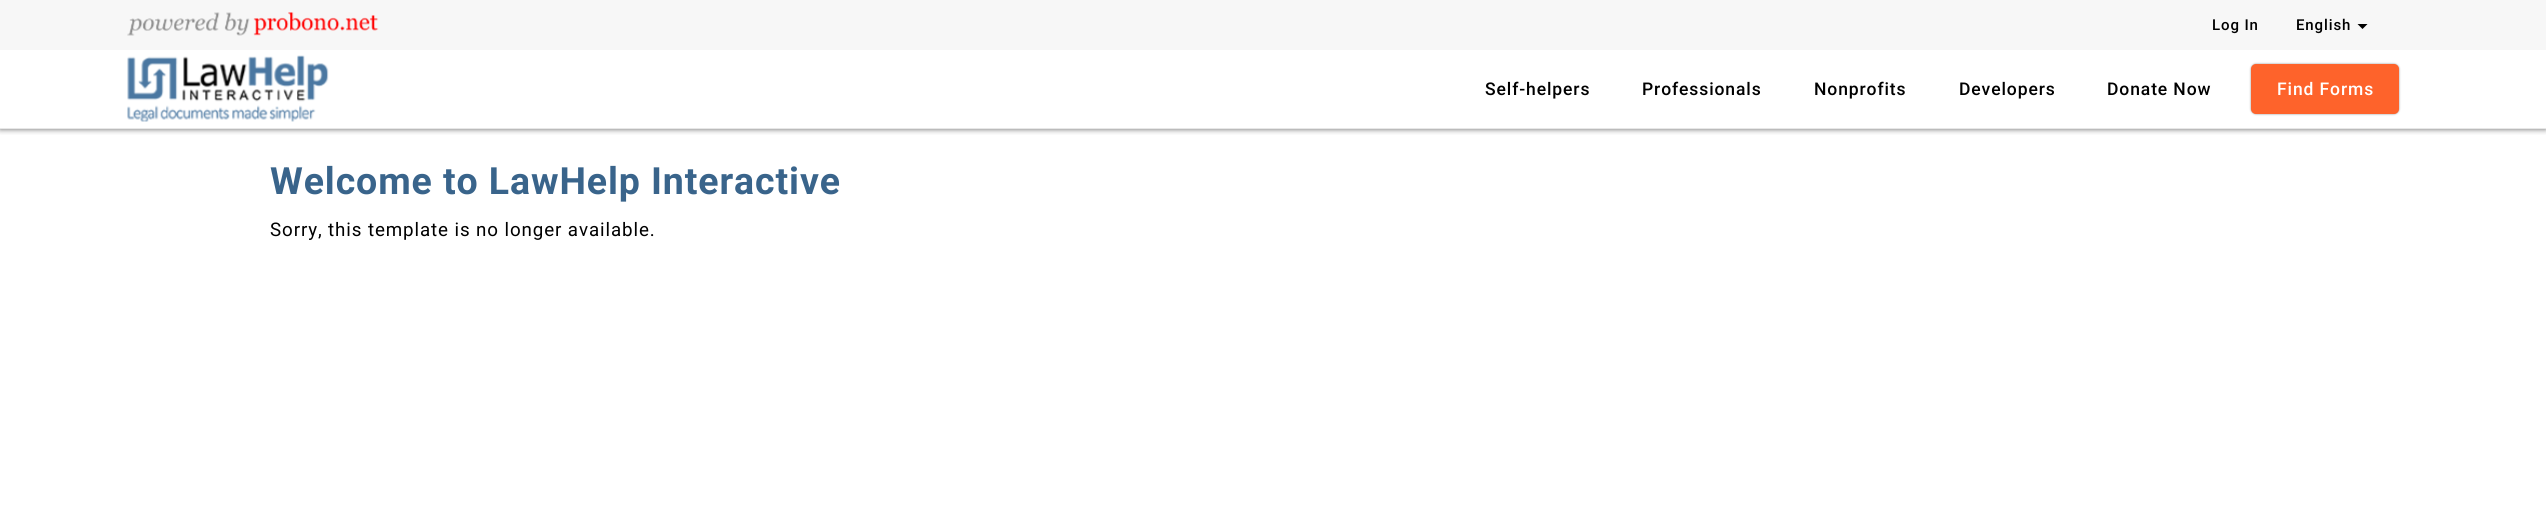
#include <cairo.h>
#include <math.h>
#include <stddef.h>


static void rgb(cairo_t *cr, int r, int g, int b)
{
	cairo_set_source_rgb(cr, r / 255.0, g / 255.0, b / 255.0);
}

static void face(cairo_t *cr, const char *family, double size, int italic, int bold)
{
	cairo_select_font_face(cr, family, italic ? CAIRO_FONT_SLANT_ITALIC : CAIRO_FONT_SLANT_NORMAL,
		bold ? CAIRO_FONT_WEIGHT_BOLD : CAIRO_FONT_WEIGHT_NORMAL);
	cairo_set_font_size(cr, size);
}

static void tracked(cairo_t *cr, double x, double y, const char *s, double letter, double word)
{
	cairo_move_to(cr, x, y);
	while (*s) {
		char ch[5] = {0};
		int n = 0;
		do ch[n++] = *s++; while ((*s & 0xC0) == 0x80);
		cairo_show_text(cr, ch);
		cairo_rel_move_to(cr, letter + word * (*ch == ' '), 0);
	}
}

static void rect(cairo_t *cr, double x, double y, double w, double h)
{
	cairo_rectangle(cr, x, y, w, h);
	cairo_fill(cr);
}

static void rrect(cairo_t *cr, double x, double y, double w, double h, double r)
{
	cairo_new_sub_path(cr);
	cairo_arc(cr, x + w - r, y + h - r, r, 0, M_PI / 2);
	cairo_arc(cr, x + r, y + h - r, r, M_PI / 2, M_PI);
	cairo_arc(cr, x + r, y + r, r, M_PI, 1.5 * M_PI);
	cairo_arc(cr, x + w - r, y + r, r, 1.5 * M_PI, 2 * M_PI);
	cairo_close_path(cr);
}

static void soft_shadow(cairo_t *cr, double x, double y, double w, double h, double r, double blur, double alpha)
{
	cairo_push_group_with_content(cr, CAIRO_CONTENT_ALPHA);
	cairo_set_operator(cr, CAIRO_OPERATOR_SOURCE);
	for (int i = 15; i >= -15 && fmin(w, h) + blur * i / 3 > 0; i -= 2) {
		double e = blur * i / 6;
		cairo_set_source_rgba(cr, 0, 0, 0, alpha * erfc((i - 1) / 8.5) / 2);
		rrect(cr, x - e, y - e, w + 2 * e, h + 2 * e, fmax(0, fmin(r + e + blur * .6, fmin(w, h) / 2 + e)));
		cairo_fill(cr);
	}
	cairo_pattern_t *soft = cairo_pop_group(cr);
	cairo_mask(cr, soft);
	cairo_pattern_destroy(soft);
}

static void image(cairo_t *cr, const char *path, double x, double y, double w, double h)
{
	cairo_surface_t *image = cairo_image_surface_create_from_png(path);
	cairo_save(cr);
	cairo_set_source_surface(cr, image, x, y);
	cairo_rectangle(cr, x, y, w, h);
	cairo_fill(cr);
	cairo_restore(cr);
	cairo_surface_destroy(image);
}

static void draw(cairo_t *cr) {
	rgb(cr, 255, 255, 255);
	cairo_paint(cr);
	cairo_save(cr);
	cairo_rectangle(cr, 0, 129, 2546, 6);
	cairo_clip(cr);
	rgb(cr, 100, 100, 100);
	soft_shadow(cr, 0, 0, 2546, 129, 0, 3, 1);
	cairo_restore(cr);
	rgb(cr, 231, 231, 231);
	rect(cr, 0, 128, 2546, 1);
	rgb(cr, 247, 247, 247);
	rect(cr, 0, 0, 2546, 50);
	image(cr, "image0.png", 127, 12, 252, 24);
	face(cr, "Roboto Medium", 15, 0, 0);
	rgb(cr, 0, 0, 0);
	tracked(cr, 2212, 30, "Log In", 0.9, 0);
	tracked(cr, 2296, 30, "English", 0.9, 0);
	cairo_new_path(cr);
	cairo_move_to(cr, 2357.5, 24);
	cairo_line_to(cr, 2367.5, 24);
	cairo_line_to(cr, 2362.5, 29);
	cairo_close_path(cr);
	cairo_fill(cr);
	image(cr, "image1.png", 127, 55, 202, 67);
	face(cr, "Roboto Medium", 17.5, 0, 0);
	tracked(cr, 1485, 95, "Self-helpers", 0.9, 0);
	tracked(cr, 1642, 95, "Professionals", 0.9, 0);
	tracked(cr, 1814, 95, "Nonprofits", 0.9, 0);
	tracked(cr, 1959, 95, "Developers", 0.9, 0);
	tracked(cr, 2107, 95, "Donate Now", 0.9, 0);
	rgb(cr, 149, 149, 149);
	soft_shadow(cr, 2251, 64, 148, 50, 5, 1, 1);
	rgb(cr, 254, 99, 43);
	rrect(cr, 2251, 64, 148, 50, 5);
	cairo_fill(cr);
	rgb(cr, 255, 255, 255);
	tracked(cr, 2277, 95, "Find Forms", 0.9, 0);
	face(cr, "Roboto", 37.5, 0, 1);
	rgb(cr, 57, 100, 139);
	tracked(cr, 270, 194, "Welcome to LawHelp Interactive", 0.9, 0);
	face(cr, "Roboto", 18.75, 0, 0);
	rgb(cr, 0, 0, 0);
	tracked(cr, 270, 236, "Sorry, this template is no longer available.", 0.9, 0);
}

int main(void) {
	cairo_surface_t *surface = cairo_image_surface_create(CAIRO_FORMAT_RGB24, 2546, 506);
	cairo_t *cr = cairo_create(surface);
	cairo_font_options_t *options = cairo_font_options_create();
	cairo_font_options_set_hint_metrics(options, CAIRO_HINT_METRICS_OFF);
	cairo_font_options_set_hint_style(options, CAIRO_HINT_STYLE_NONE);
	cairo_set_font_options(cr, options);
	cairo_set_miter_limit(cr, 4);
	draw(cr);
	cairo_surface_write_to_png(surface, "render.png");
	cairo_font_options_destroy(options);
	cairo_destroy(cr);
	cairo_surface_destroy(surface);
	return 0;
}
